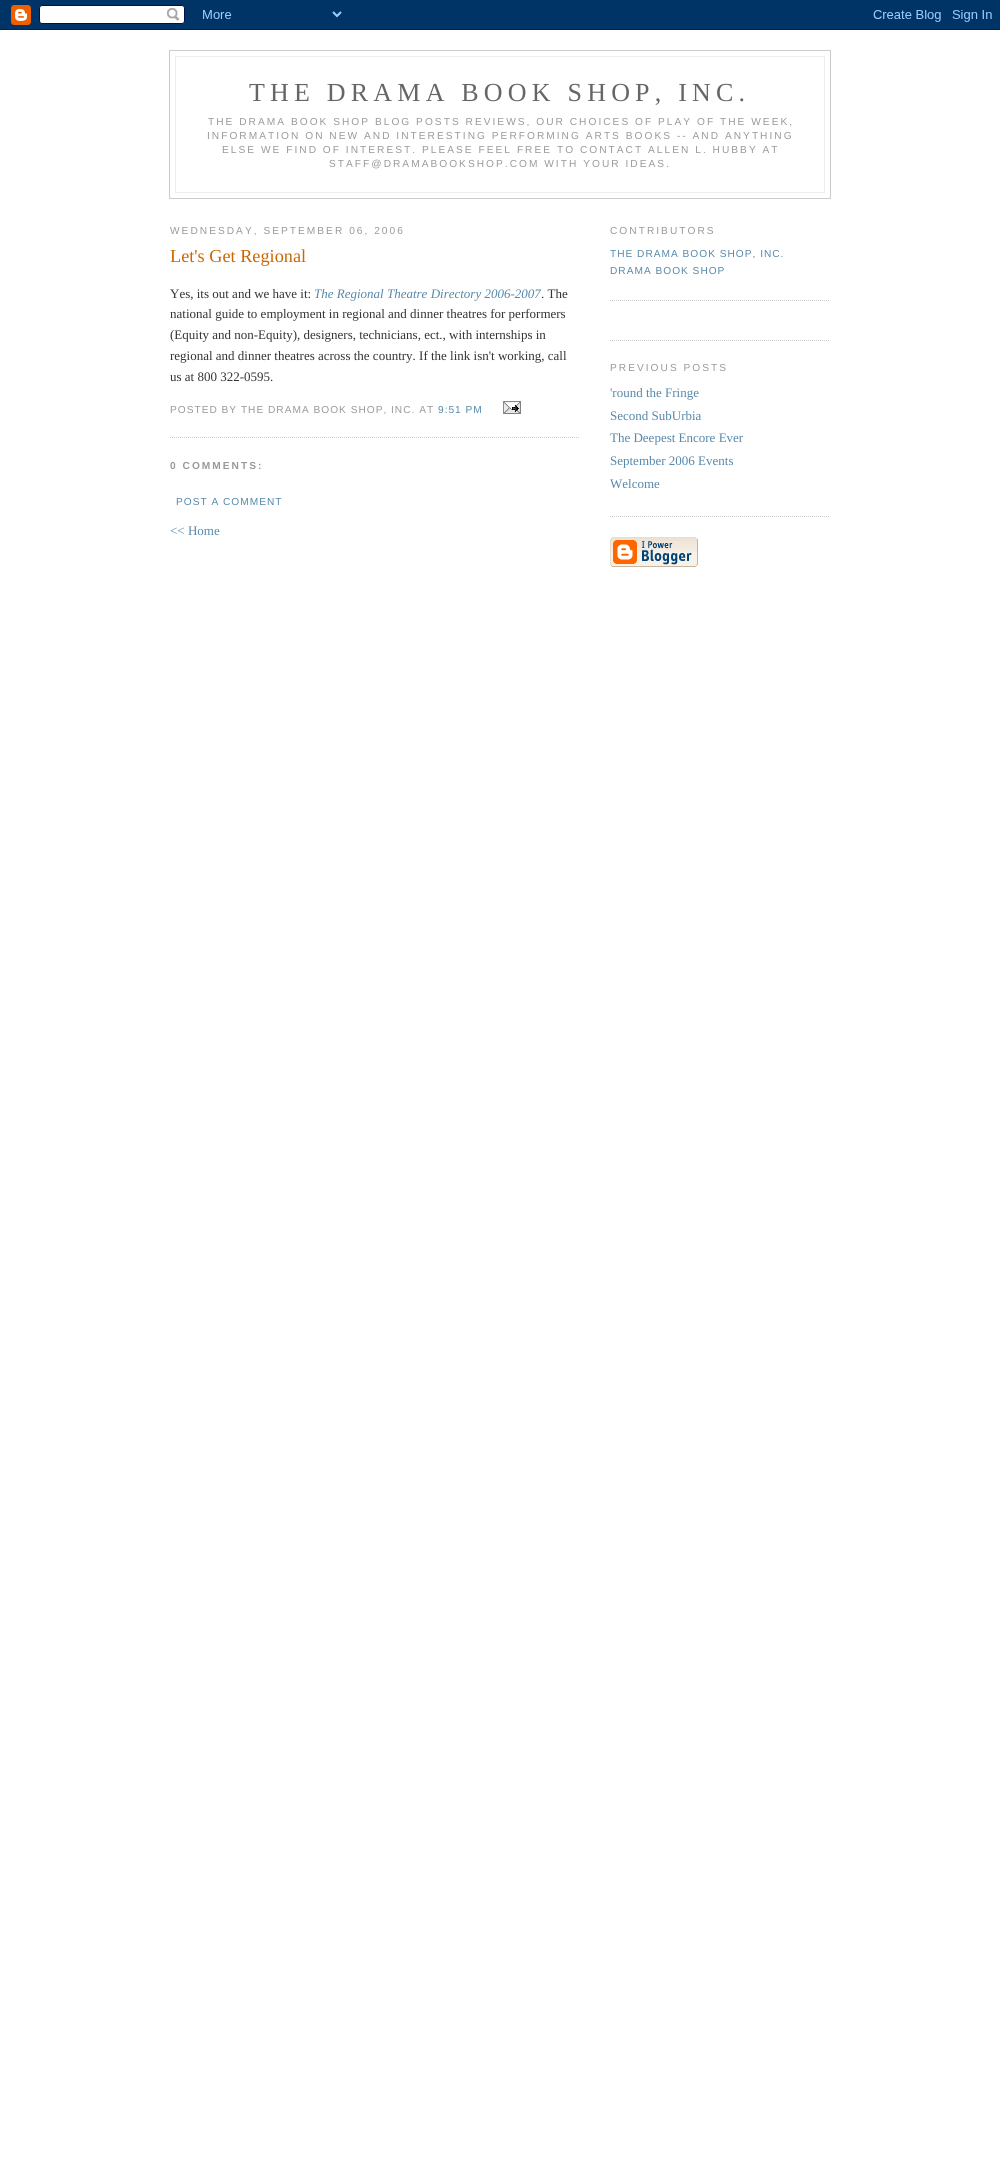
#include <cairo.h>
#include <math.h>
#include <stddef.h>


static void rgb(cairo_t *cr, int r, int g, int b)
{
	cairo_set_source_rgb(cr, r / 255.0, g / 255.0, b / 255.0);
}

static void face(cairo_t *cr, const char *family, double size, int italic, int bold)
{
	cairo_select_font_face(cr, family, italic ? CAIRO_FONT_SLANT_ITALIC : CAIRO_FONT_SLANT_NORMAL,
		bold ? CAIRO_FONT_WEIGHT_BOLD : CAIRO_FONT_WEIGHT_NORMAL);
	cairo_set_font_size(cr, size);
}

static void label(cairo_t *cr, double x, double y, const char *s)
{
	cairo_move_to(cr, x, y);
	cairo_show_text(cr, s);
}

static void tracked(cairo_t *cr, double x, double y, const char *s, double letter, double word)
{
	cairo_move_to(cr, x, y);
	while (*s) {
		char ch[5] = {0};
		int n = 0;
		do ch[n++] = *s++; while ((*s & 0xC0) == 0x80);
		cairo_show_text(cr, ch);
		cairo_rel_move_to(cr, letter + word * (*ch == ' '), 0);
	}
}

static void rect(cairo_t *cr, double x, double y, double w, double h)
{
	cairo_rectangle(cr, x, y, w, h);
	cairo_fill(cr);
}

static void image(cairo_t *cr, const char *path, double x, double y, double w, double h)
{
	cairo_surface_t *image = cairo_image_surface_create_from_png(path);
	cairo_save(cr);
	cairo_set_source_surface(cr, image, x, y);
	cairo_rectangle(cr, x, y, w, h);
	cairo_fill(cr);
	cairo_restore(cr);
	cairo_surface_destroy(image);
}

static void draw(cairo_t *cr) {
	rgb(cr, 255, 255, 255);
	cairo_paint(cr);
	image(cr, "image0.png", 0, 0, 1000, 30);
	cairo_rectangle(cr, 169.5, 50.5, 661, 148);
	rgb(cr, 204, 204, 204);
	cairo_set_line_width(cr, 1);
	cairo_stroke(cr);
	rgb(cr, 238, 238, 238);
	rect(cr, 175, 56, 650, 1);
	rect(cr, 824, 56, 1, 137);
	rect(cr, 175, 56, 1, 59);
	face(cr, "Liberation Serif", 26, 0, 0);
	rgb(cr, 102, 102, 102);
	tracked(cr, 249, 101, "THE DRAMA BOOK SHOP, INC.", 5.2, 0);
	rgb(cr, 238, 238, 238);
	rect(cr, 175, 192, 650, 1);
	rect(cr, 175, 115, 1, 78);
	face(cr, "Liberation Sans", 10.15, 0, 0);
	rgb(cr, 153, 153, 153);
	tracked(cr, 208, 125, "THE DRAMA BOOK SHOP BLOG POSTS REVIEWS, OUR CHOICES OF PLAY OF THE WEEK,", 2.03, 0);
	tracked(cr, 207, 139, "INFORMATION ON NEW AND INTERESTING PERFORMING ARTS BOOKS -- AND ANYTHING", 2.03, 0);
	tracked(cr, 222, 153, "ELSE WE FIND OF INTEREST. PLEASE FEEL FREE TO CONTACT ALLEN L. HUBBY AT", 2.03, 0);
	tracked(cr, 329, 167, "STAFF@DRAMABOOKSHOP.COM WITH YOUR IDEAS.", 2.03, 0);
	tracked(cr, 170, 234, "WEDNESDAY, SEPTEMBER 06, 2006", 2.03, 0);
	cairo_new_path(cr);
	cairo_move_to(cr, 170, 437.5);
	cairo_line_to(cr, 580, 437.5);
	rgb(cr, 204, 204, 204);
	cairo_set_dash(cr, (double[]){1, 1}, 2, 0);
	cairo_stroke(cr);
	face(cr, "Liberation Serif", 18.25, 0, 0);
	rgb(cr, 204, 102, 0);
	label(cr, 170, 262, "Let's Get Regional");
	face(cr, "Liberation Serif", 13, 0, 0);
	rgb(cr, 51, 51, 51);
	label(cr, 170, 298, "Yes, its out and we have it:");
	face(cr, "Liberation Serif", 13, 1, 0);
	rgb(cr, 85, 136, 170);
	label(cr, 314, 298, "The Regional Theatre Directory 2006-2007");
	face(cr, "Liberation Serif", 13, 0, 0);
	rgb(cr, 51, 51, 51);
	label(cr, 541, 298, ". The");
	label(cr, 170, 318, "national guide to employment in regional and dinner theatres for performers");
	label(cr, 170, 339, "(Equity and non-Equity), designers, technicians, ect., with internships in");
	label(cr, 170, 360, "regional and dinner theatres across the country. If the link isn't working, call");
	label(cr, 170, 381, "us at 800 322-0595.");
	face(cr, "Liberation Sans", 10.15, 0, 0);
	rgb(cr, 153, 153, 153);
	tracked(cr, 170, 413, "POSTED BY THE DRAMA BOOK SHOP, INC. AT", 1, 0);
	rgb(cr, 85, 136, 170);
	tracked(cr, 438, 413, "9:51 PM", 1, 0);
	image(cr, "image1.png", 503, 401, 18, 13);
	face(cr, "Liberation Sans", 10.15, 0, 1);
	rgb(cr, 153, 153, 153);
	tracked(cr, 170, 469, "0 COMMENTS:", 2.03, 0);
	face(cr, "Liberation Sans", 10.15, 0, 0);
	rgb(cr, 85, 136, 170);
	tracked(cr, 176, 505, "POST A COMMENT", 1, 0);
	face(cr, "Liberation Serif", 13, 0, 0);
	label(cr, 170, 535, "<< Home");
	cairo_new_path(cr);
	cairo_move_to(cr, 610, 340.5);
	cairo_line_to(cr, 830, 340.5);
	rgb(cr, 204, 204, 204);
	cairo_stroke(cr);
	face(cr, "Liberation Sans", 10.15, 0, 0);
	rgb(cr, 153, 153, 153);
	tracked(cr, 610, 234, "CONTRIBUTORS", 2.03, 0);
	cairo_new_path(cr);
	cairo_move_to(cr, 610, 300.5);
	cairo_line_to(cr, 830, 300.5);
	rgb(cr, 204, 204, 204);
	cairo_stroke(cr);
	rgb(cr, 85, 136, 170);
	tracked(cr, 610, 257, "THE DRAMA BOOK SHOP, INC.", 1, 0);
	tracked(cr, 610, 274, "DRAMA BOOK SHOP", 1, 0);
	rgb(cr, 153, 153, 153);
	tracked(cr, 610, 371, "PREVIOUS POSTS", 2.03, 0);
	cairo_new_path(cr);
	cairo_move_to(cr, 610, 516.5);
	cairo_line_to(cr, 830, 516.5);
	rgb(cr, 204, 204, 204);
	cairo_stroke(cr);
	face(cr, "Liberation Serif", 13, 0, 0);
	rgb(cr, 85, 136, 170);
	label(cr, 610, 397, "'round the Fringe");
	label(cr, 610, 420, "Second SubUrbia");
	label(cr, 610, 442, "The Deepest Encore Ever");
	label(cr, 610, 465, "September 2006 Events");
	label(cr, 610, 488, "Welcome");
	image(cr, "image2.png", 610, 537, 88, 30);
}

int main(void) {
	cairo_surface_t *surface = cairo_image_surface_create(CAIRO_FORMAT_RGB24, 1000, 2180);
	cairo_t *cr = cairo_create(surface);
	cairo_font_options_t *options = cairo_font_options_create();
	cairo_font_options_set_hint_metrics(options, CAIRO_HINT_METRICS_OFF);
	cairo_font_options_set_hint_style(options, CAIRO_HINT_STYLE_NONE);
	cairo_set_font_options(cr, options);
	cairo_set_miter_limit(cr, 4);
	draw(cr);
	cairo_surface_write_to_png(surface, "render.png");
	cairo_font_options_destroy(options);
	cairo_destroy(cr);
	cairo_surface_destroy(surface);
	return 0;
}
